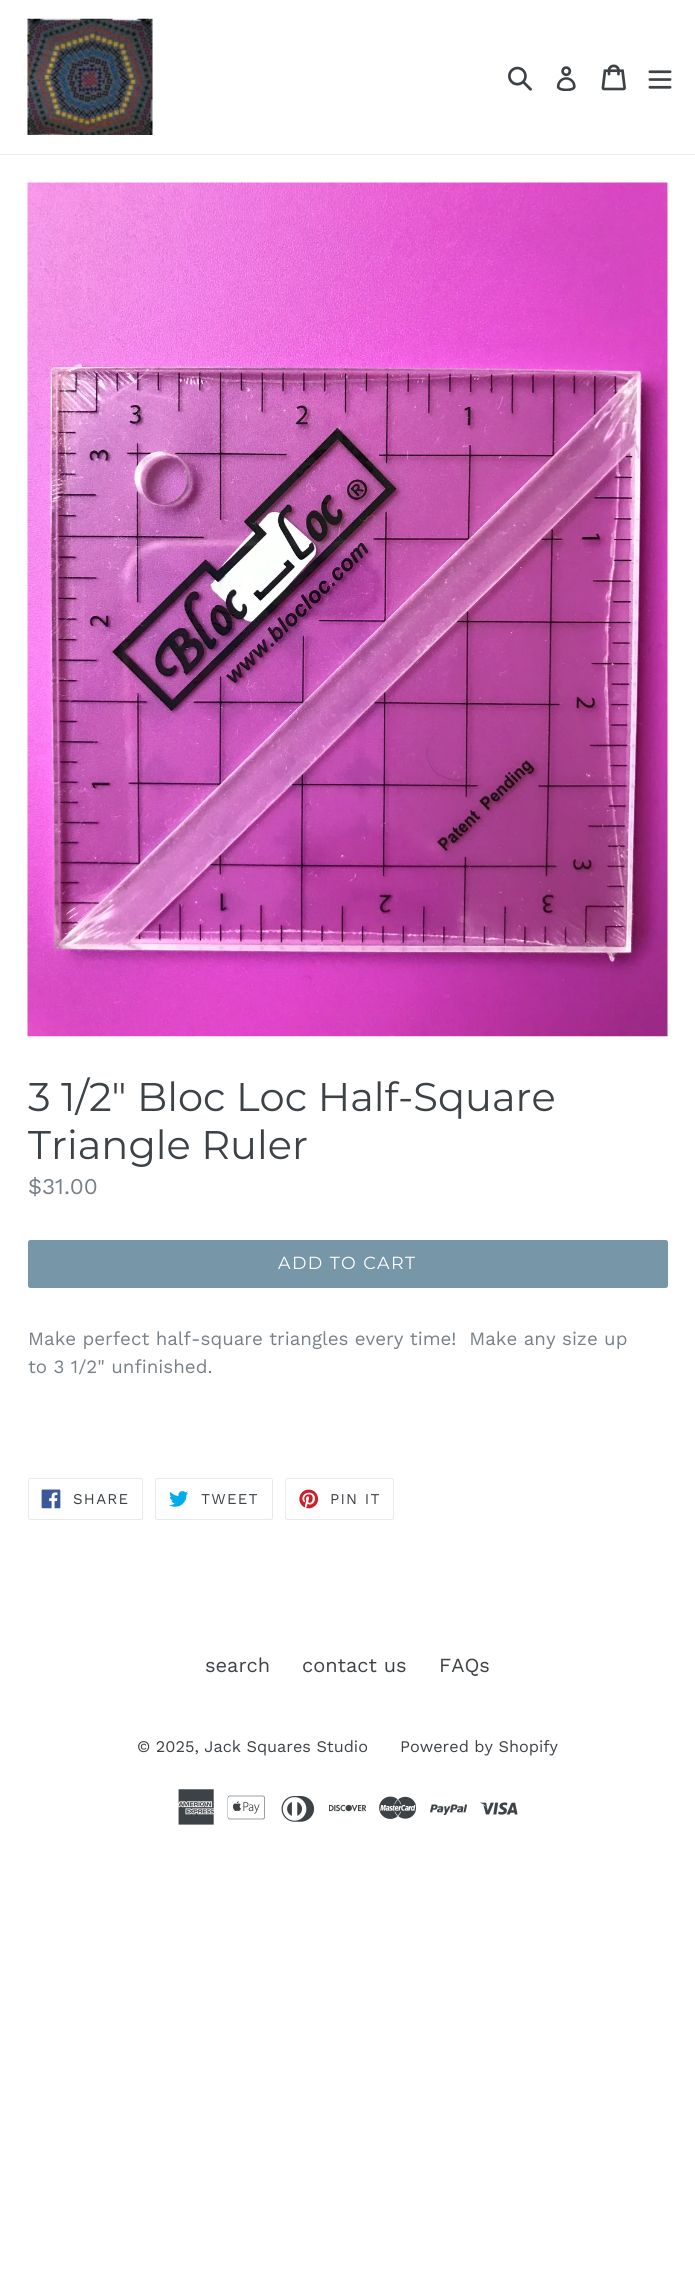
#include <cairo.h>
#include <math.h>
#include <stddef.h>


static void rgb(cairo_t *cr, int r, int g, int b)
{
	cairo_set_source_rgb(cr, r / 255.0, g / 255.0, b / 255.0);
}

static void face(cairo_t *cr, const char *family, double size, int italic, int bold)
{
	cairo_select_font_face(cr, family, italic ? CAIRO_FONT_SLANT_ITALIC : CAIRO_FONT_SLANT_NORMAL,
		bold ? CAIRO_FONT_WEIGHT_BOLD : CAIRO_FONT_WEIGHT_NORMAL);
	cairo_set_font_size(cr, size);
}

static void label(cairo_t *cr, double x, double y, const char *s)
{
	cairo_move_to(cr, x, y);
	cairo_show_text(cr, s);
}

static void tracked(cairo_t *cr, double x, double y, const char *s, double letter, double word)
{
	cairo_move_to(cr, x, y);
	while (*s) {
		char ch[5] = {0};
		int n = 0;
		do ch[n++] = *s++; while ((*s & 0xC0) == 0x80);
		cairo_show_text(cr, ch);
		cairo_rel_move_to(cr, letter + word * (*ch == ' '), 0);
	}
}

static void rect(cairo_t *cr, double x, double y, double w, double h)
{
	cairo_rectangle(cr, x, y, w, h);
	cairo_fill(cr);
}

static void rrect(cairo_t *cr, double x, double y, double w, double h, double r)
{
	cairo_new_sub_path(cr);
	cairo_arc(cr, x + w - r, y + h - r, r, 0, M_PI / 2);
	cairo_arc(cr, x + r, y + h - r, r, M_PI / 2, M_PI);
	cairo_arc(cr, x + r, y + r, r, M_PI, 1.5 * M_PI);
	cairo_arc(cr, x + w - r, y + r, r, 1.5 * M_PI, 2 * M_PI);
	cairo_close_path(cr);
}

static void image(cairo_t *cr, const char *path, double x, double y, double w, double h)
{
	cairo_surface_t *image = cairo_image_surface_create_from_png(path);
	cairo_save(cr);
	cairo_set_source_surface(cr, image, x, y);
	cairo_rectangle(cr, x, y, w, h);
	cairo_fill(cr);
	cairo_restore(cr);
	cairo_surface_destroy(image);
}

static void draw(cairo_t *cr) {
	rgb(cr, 255, 255, 255);
	cairo_paint(cr);
	rgb(cr, 232, 233, 235);
	rect(cr, 0, 154, 695, 1);
	image(cr, "image0.png", 27, 18, 126, 117);
	image(cr, "image1.png", 508, 66, 24, 25);
	image(cr, "image2.png", 556, 66, 20, 25);
	image(cr, "image3.png", 601, 64, 25, 27);
	image(cr, "image4.png", 648, 70, 24, 19);
	image(cr, "image5.png", 27, 182, 641, 855);
	face(cr, "Montserrat Thin", 40, 0, 0);
	rgb(cr, 61, 66, 70);
	label(cr, 28, 1111, "3 1/2\" Bloc Loc Half-Square");
	label(cr, 28, 1159, "Triangle Ruler");
	face(cr, "Work Sans", 22.5, 0, 0);
	rgb(cr, 120, 129, 136);
	label(cr, 28, 1194, "$31.00");
	rgb(cr, 119, 150, 168);
	rrect(cr, 28, 1240, 640, 48, 2.5);
	cairo_fill(cr);
	face(cr, "Montserrat Thin", 17.5, 0, 0);
	rgb(cr, 255, 255, 255);
	tracked(cr, 278, 1269, "ADD TO CART", 1.4, 0);
	face(cr, "Work Sans", 18.75, 0, 0);
	rgb(cr, 120, 129, 136);
	label(cr, 28, 1345, "Make perfect half-square triangles every time!  Make any size up");
	label(cr, 28, 1373, "to 3 1/2\" unfinished.");
	rrect(cr, 28.5, 1478.5, 114, 41, 2);
	rgb(cr, 232, 233, 235);
	cairo_set_line_width(cr, 1);
	cairo_stroke(cr);
	image(cr, "image6.png", 41, 1489, 20, 20);
	face(cr, "Work Sans", 15, 0, 0);
	rgb(cr, 61, 66, 70);
	tracked(cr, 73, 1504, "SHARE", 1.25, 0);
	rrect(cr, 155.5, 1478.5, 117, 41, 2);
	rgb(cr, 232, 233, 235);
	cairo_stroke(cr);
	image(cr, "image7.png", 169, 1491, 20, 16);
	rgb(cr, 61, 66, 70);
	tracked(cr, 201, 1504, "TWEET", 1.25, 0);
	rrect(cr, 285.5, 1478.5, 108, 41, 2);
	rgb(cr, 232, 233, 235);
	cairo_stroke(cr);
	image(cr, "image8.png", 299, 1489, 20, 20);
	rgb(cr, 61, 66, 70);
	tracked(cr, 330, 1504, "PIN IT", 1.25, 0);
	face(cr, "Work Sans", 20, 0, 0);
	label(cr, 205, 1672, "search");
	label(cr, 302, 1672, "contact us");
	label(cr, 439, 1672, "FAQs");
	face(cr, "Work Sans", 16.25, 0, 0);
	label(cr, 137, 1752, "© 2025, Jack Squares Studio");
	label(cr, 400, 1752, "Powered by Shopify");
	image(cr, "image9.png", 178, 1789, 36, 36);
	image(cr, "image10.png", 227, 1795, 38, 25);
	image(cr, "image11.png", 281, 1796, 34, 26);
	image(cr, "image12.png", 329, 1804, 37, 8);
	image(cr, "image13.png", 379, 1796, 37, 23);
	image(cr, "image14.png", 430, 1804, 38, 11);
	image(cr, "image15.png", 480, 1802, 38, 13);
}

int main(void) {
	cairo_surface_t *surface = cairo_image_surface_create(CAIRO_FORMAT_RGB24, 695, 2272);
	cairo_t *cr = cairo_create(surface);
	cairo_font_options_t *options = cairo_font_options_create();
	cairo_font_options_set_hint_metrics(options, CAIRO_HINT_METRICS_OFF);
	cairo_font_options_set_hint_style(options, CAIRO_HINT_STYLE_NONE);
	cairo_set_font_options(cr, options);
	cairo_set_miter_limit(cr, 4);
	draw(cr);
	cairo_surface_write_to_png(surface, "render.png");
	cairo_font_options_destroy(options);
	cairo_destroy(cr);
	cairo_surface_destroy(surface);
	return 0;
}
